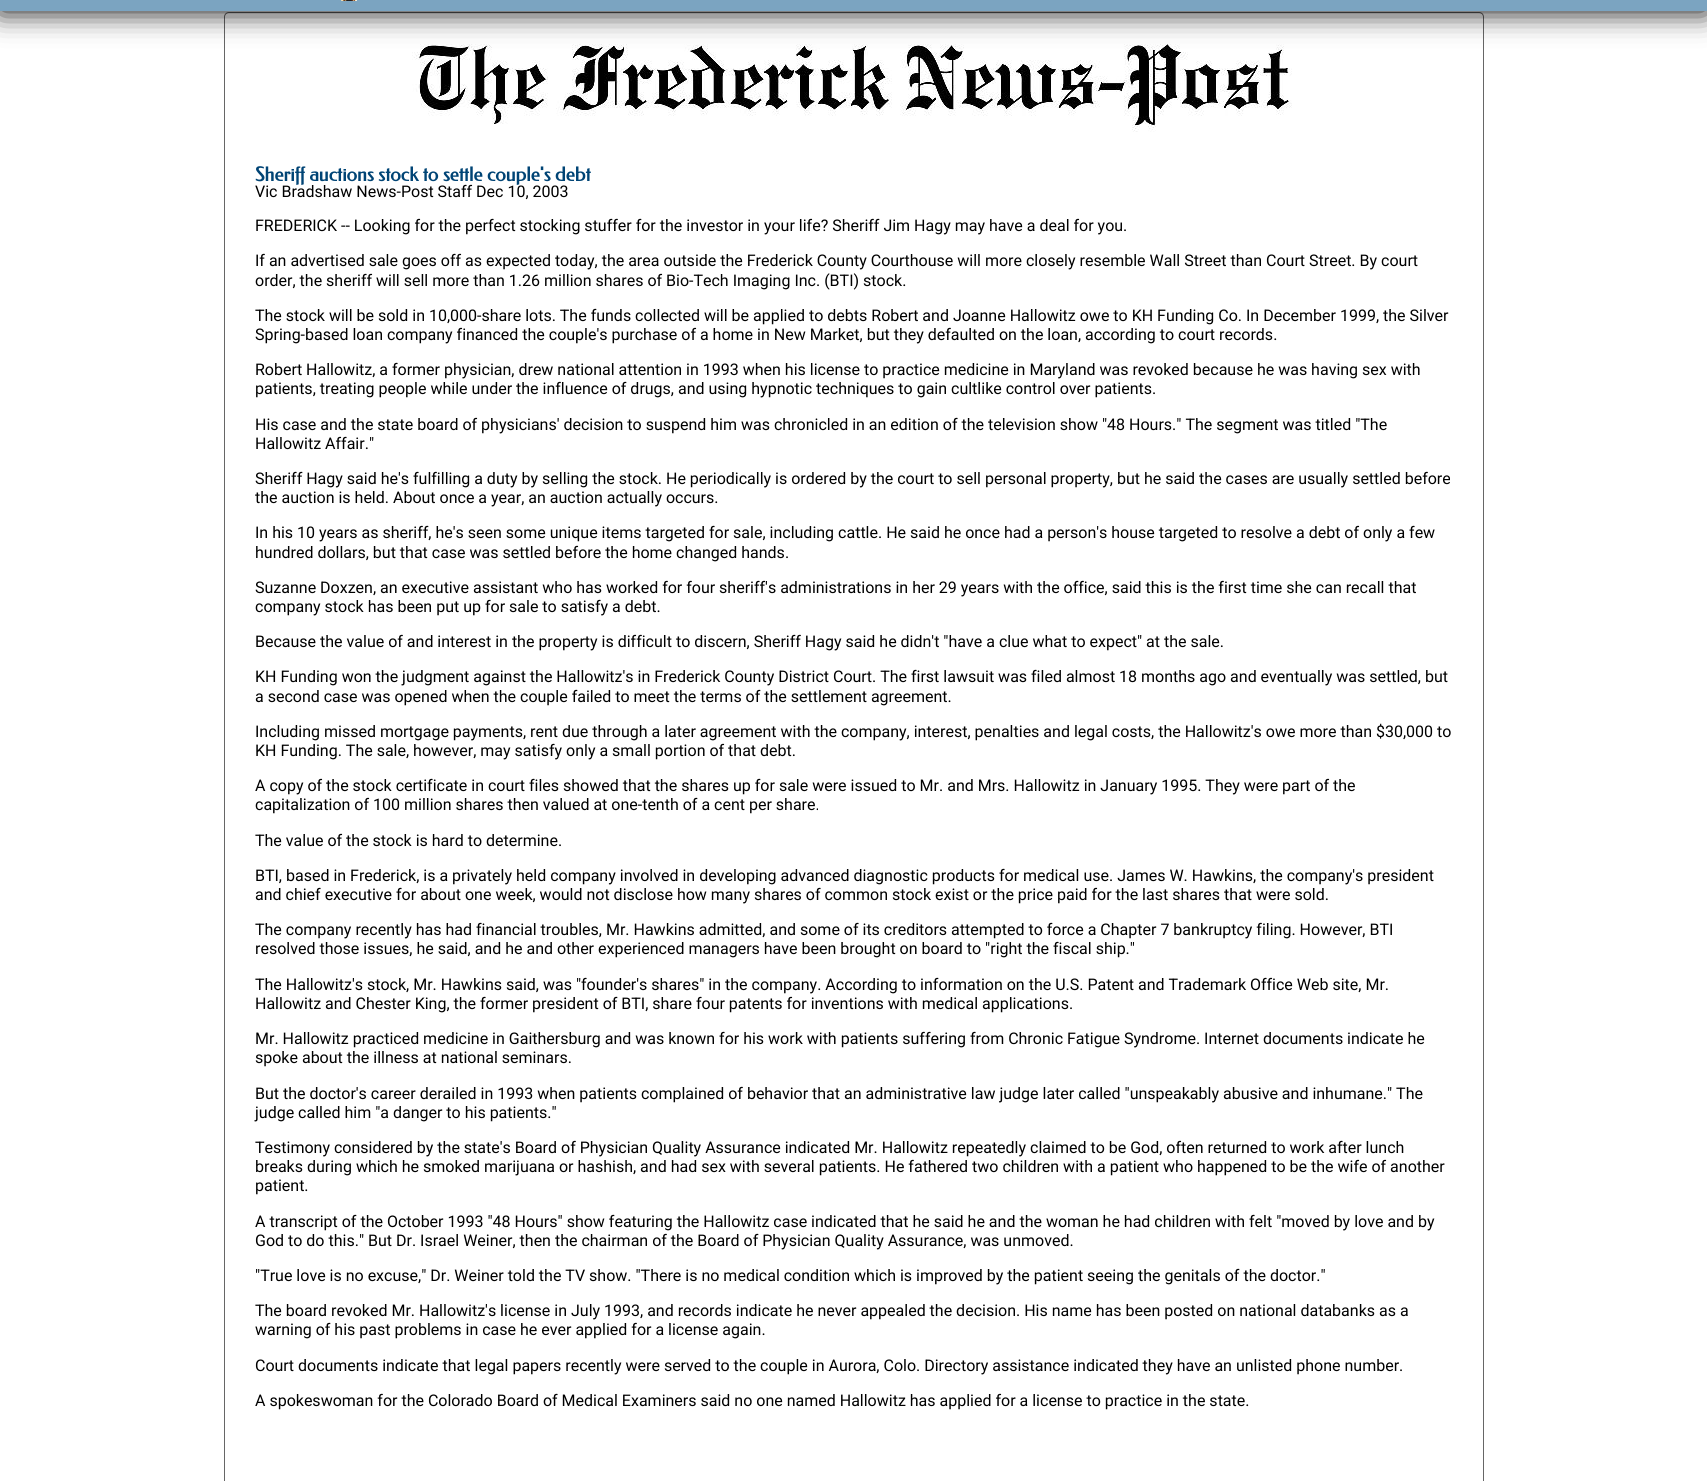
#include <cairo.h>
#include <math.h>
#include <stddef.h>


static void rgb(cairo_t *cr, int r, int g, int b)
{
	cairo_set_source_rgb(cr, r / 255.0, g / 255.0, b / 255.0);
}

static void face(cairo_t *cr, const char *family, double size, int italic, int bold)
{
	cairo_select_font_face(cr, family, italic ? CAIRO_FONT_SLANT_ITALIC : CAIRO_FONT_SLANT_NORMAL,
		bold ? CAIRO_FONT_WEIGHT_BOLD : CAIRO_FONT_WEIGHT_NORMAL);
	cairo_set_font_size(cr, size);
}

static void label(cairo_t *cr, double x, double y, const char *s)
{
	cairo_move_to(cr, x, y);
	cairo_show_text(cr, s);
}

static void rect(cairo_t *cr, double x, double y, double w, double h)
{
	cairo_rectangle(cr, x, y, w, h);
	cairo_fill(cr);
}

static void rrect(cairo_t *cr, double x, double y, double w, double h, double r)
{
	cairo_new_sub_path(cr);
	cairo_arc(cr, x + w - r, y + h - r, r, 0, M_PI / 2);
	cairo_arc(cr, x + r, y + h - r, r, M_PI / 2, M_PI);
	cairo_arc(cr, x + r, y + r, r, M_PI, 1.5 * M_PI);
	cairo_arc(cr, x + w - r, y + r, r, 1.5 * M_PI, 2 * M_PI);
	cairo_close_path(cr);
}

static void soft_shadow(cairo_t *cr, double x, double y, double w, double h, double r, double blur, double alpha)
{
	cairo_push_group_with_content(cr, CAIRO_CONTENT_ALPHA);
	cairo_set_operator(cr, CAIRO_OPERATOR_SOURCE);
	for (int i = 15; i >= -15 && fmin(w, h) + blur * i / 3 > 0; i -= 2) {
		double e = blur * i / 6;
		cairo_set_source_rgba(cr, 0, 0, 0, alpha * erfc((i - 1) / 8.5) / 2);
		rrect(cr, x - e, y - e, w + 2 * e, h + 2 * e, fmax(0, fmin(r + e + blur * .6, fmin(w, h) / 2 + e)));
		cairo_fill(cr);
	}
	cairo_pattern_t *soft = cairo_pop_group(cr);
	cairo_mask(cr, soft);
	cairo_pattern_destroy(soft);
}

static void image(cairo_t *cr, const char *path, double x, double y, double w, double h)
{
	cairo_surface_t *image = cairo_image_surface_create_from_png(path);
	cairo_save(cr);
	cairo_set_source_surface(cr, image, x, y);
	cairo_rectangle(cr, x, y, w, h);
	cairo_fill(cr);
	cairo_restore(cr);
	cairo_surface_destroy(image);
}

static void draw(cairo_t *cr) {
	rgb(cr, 255, 255, 255);
	cairo_paint(cr);
	rrect(cr, 224.5, 12.5, 1259, 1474, 4.5);
	rgb(cr, 102, 102, 102);
	cairo_set_line_width(cr, 1);
	cairo_stroke(cr);
	image(cr, "image1.png", 412, 44, 880, 88);
	rgb(cr, 0, 0, 0);
	soft_shadow(cr, 0, -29, 1707, 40, 0, 15, 1);
	rgb(cr, 123, 164, 193);
	rect(cr, 0, 0, 1707, 11);
	image(cr, "image0.png", 341, 0, 16, 1);
	face(cr, "Federo", 19.25, 0, 1);
	rgb(cr, 0, 68, 117);
	label(cr, 255, 181, "Sheriff auctions stock to settle couple's debt");
	face(cr, "Roboto", 16, 0, 0);
	rgb(cr, 0, 0, 0);
	label(cr, 255, 197, "Vic Bradshaw News-Post Staff Dec 10, 2003");
	label(cr, 255, 231, "FREDERICK -- Looking for the perfect stocking stuffer for the investor in your life? Sheriff Jim Hagy may have a deal for you.");
	label(cr, 255, 266, "If an advertised sale goes off as expected today, the area outside the Frederick County Courthouse will more closely resemble Wall Street than Court Street. By court");
	label(cr, 255, 286, "order, the sheriff will sell more than 1.26 million shares of Bio-Tech Imaging Inc. (BTI) stock.");
	label(cr, 255, 321, "The stock will be sold in 10,000-share lots. The funds collected will be applied to debts Robert and Joanne Hallowitz owe to KH Funding Co. In December 1999, the Silver");
	label(cr, 255, 340, "Spring-based loan company financed the couple's purchase of a home in New Market, but they defaulted on the loan, according to court records.");
	label(cr, 255, 375, "Robert Hallowitz, a former physician, drew national attention in 1993 when his license to practice medicine in Maryland was revoked because he was having sex with");
	label(cr, 255, 394, "patients, treating people while under the influence of drugs, and using hypnotic techniques to gain cultlike control over patients.");
	label(cr, 255, 430, "His case and the state board of physicians' decision to suspend him was chronicled in an edition of the television show \"48 Hours.\" The segment was titled \"The");
	label(cr, 255, 449, "Hallowitz Affair.\"");
	label(cr, 255, 484, "Sheriff Hagy said he's fulfilling a duty by selling the stock. He periodically is ordered by the court to sell personal property, but he said the cases are usually settled before");
	label(cr, 255, 503, "the auction is held. About once a year, an auction actually occurs.");
	label(cr, 255, 538, "In his 10 years as sheriff, he's seen some unique items targeted for sale, including cattle. He said he once had a person's house targeted to resolve a debt of only a few");
	label(cr, 255, 558, "hundred dollars, but that case was settled before the home changed hands.");
	label(cr, 255, 593, "Suzanne Doxzen, an executive assistant who has worked for four sheriff's administrations in her 29 years with the office, said this is the first time she can recall that");
	label(cr, 255, 612, "company stock has been put up for sale to satisfy a debt.");
	label(cr, 255, 647, "Because the value of and interest in the property is difficult to discern, Sheriff Hagy said he didn't \"have a clue what to expect\" at the sale.");
	label(cr, 255, 682, "KH Funding won the judgment against the Hallowitz's in Frederick County District Court. The first lawsuit was filed almost 18 months ago and eventually was settled, but");
	label(cr, 255, 702, "a second case was opened when the couple failed to meet the terms of the settlement agreement.");
	label(cr, 255, 737, "Including missed mortgage payments, rent due through a later agreement with the company, interest, penalties and legal costs, the Hallowitz's owe more than $30,000 to");
	label(cr, 255, 756, "KH Funding. The sale, however, may satisfy only a small portion of that debt.");
	label(cr, 255, 791, "A copy of the stock certificate in court files showed that the shares up for sale were issued to Mr. and Mrs. Hallowitz in January 1995. They were part of the");
	label(cr, 255, 810, "capitalization of 100 million shares then valued at one-tenth of a cent per share.");
	label(cr, 255, 846, "The value of the stock is hard to determine.");
	label(cr, 255, 881, "BTI, based in Frederick, is a privately held company involved in developing advanced diagnostic products for medical use. James W. Hawkins, the company's president");
	label(cr, 255, 900, "and chief executive for about one week, would not disclose how many shares of common stock exist or the price paid for the last shares that were sold.");
	label(cr, 255, 935, "The company recently has had financial troubles, Mr. Hawkins admitted, and some of its creditors attempted to force a Chapter 7 bankruptcy filing. However, BTI");
	label(cr, 255, 954, "resolved those issues, he said, and he and other experienced managers have been brought on board to \"right the fiscal ship.\"");
	label(cr, 255, 990, "The Hallowitz's stock, Mr. Hawkins said, was \"founder's shares\" in the company. According to information on the U.S. Patent and Trademark Office Web site, Mr.");
	label(cr, 255, 1009, "Hallowitz and Chester King, the former president of BTI, share four patents for inventions with medical applications.");
	label(cr, 255, 1044, "Mr. Hallowitz practiced medicine in Gaithersburg and was known for his work with patients suffering from Chronic Fatigue Syndrome. Internet documents indicate he");
	label(cr, 255, 1063, "spoke about the illness at national seminars.");
	label(cr, 255, 1099, "But the doctor's career derailed in 1993 when patients complained of behavior that an administrative law judge later called \"unspeakably abusive and inhumane.\" The");
	label(cr, 255, 1118, "judge called him \"a danger to his patients.\"");
	label(cr, 255, 1153, "Testimony considered by the state's Board of Physician Quality Assurance indicated Mr. Hallowitz repeatedly claimed to be God, often returned to work after lunch");
	label(cr, 255, 1172, "breaks during which he smoked marijuana or hashish, and had sex with several patients. He fathered two children with a patient who happened to be the wife of another");
	label(cr, 255, 1191, "patient.");
	label(cr, 255, 1227, "A transcript of the October 1993 \"48 Hours\" show featuring the Hallowitz case indicated that he said he and the woman he had children with felt \"moved by love and by");
	label(cr, 255, 1246, "God to do this.\" But Dr. Israel Weiner, then the chairman of the Board of Physician Quality Assurance, was unmoved.");
	label(cr, 255, 1281, "\"True love is no excuse,\" Dr. Weiner told the TV show. \"There is no medical condition which is improved by the patient seeing the genitals of the doctor.\"");
	label(cr, 255, 1316, "The board revoked Mr. Hallowitz's license in July 1993, and records indicate he never appealed the decision. His name has been posted on national databanks as a");
	label(cr, 255, 1335, "warning of his past problems in case he ever applied for a license again.");
	label(cr, 255, 1371, "Court documents indicate that legal papers recently were served to the couple in Aurora, Colo. Directory assistance indicated they have an unlisted phone number.");
	label(cr, 255, 1406, "A spokeswoman for the Colorado Board of Medical Examiners said no one named Hallowitz has applied for a license to practice in the state.");
}

int main(void) {
	cairo_surface_t *surface = cairo_image_surface_create(CAIRO_FORMAT_RGB24, 1707, 1481);
	cairo_t *cr = cairo_create(surface);
	cairo_font_options_t *options = cairo_font_options_create();
	cairo_font_options_set_hint_metrics(options, CAIRO_HINT_METRICS_OFF);
	cairo_font_options_set_hint_style(options, CAIRO_HINT_STYLE_NONE);
	cairo_set_font_options(cr, options);
	cairo_set_miter_limit(cr, 4);
	draw(cr);
	cairo_surface_write_to_png(surface, "render.png");
	cairo_font_options_destroy(options);
	cairo_destroy(cr);
	cairo_surface_destroy(surface);
	return 0;
}
